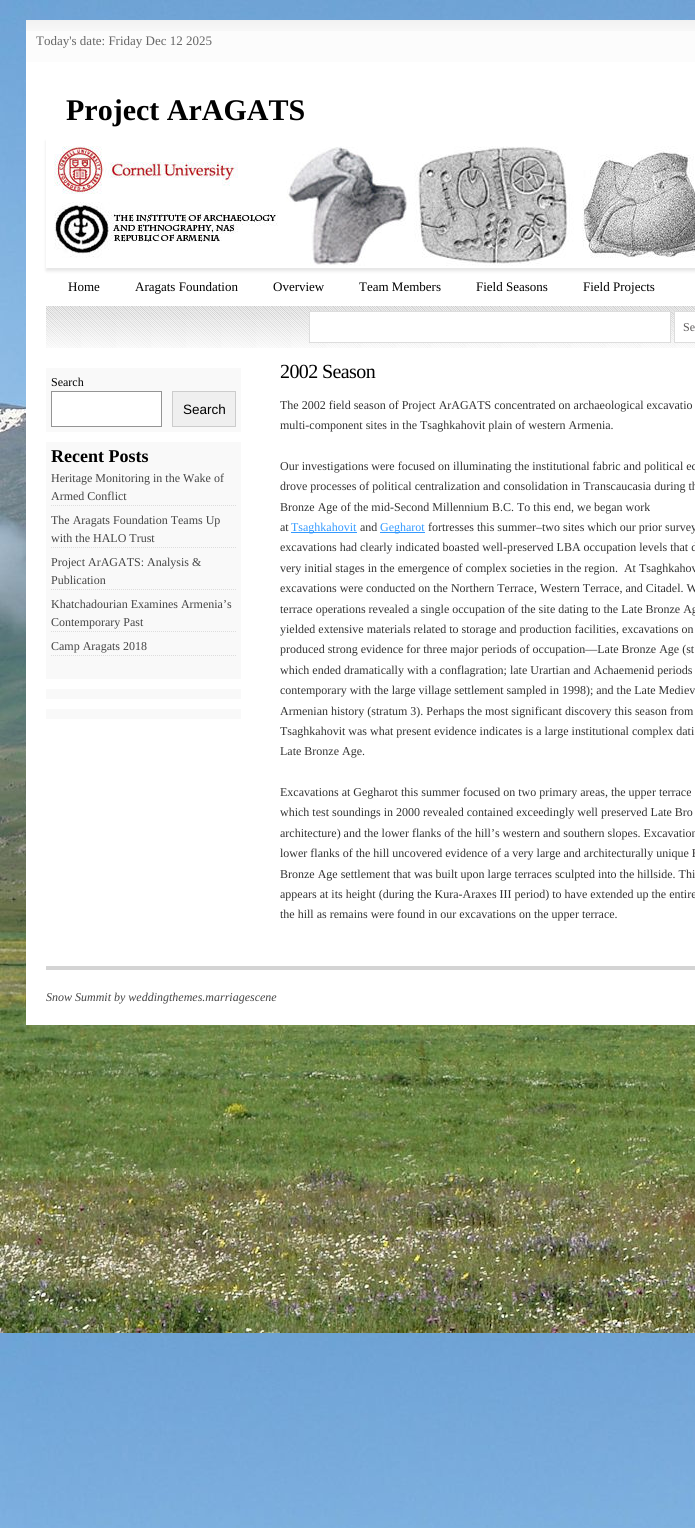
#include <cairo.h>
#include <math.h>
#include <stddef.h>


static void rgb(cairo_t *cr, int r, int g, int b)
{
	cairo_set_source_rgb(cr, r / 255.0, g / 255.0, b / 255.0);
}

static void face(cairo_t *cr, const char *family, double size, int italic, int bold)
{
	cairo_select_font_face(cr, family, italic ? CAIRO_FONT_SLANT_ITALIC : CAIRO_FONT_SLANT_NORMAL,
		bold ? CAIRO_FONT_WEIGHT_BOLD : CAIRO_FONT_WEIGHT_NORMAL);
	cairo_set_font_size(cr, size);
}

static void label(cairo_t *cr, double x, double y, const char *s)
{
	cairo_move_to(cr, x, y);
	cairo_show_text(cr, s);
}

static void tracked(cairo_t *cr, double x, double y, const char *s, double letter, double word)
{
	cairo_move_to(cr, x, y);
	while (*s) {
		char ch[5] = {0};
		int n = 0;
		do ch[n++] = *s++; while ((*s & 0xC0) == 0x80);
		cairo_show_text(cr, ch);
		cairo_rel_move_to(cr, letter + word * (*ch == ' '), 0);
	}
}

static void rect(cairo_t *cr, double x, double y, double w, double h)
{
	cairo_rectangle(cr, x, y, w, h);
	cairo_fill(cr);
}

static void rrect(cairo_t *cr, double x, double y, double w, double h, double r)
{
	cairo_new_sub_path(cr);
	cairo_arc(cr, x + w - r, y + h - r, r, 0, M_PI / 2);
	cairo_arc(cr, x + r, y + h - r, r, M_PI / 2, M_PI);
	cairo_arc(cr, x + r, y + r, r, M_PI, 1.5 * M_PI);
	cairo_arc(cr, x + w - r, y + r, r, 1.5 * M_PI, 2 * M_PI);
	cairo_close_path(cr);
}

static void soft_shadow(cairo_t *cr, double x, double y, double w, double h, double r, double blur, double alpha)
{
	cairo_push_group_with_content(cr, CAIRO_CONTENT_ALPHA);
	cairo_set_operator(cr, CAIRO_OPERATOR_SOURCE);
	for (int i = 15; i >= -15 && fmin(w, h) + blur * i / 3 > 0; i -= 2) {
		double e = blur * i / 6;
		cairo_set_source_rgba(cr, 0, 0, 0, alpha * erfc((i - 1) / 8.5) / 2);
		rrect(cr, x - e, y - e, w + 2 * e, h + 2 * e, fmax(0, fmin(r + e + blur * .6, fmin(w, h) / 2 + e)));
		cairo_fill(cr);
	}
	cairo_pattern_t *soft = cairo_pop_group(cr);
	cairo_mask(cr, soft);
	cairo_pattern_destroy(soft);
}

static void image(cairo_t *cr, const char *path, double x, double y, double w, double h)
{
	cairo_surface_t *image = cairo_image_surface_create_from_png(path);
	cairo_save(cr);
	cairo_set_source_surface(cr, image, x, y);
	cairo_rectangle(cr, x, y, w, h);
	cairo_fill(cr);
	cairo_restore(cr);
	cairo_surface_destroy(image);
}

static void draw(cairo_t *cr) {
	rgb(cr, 255, 255, 255);
	cairo_paint(cr);
	image(cr, "image0.png", 0, 0, 695, 1528);
	rgb(cr, 252, 252, 252);
	rect(cr, 26, 20, 669, 42);
	image(cr, "image1.png", 26, 20, 669, 11);
	face(cr, "Liberation Serif", 13, 0, 0);
	rgb(cr, 102, 102, 102);
	label(cr, 36, 45, "Today's date: Friday Dec 12 2025");
	rgb(cr, 255, 255, 255);
	rect(cr, 26, 62, 669, 963);
	face(cr, "Liberation Serif", 30, 0, 1);
	rgb(cr, 0, 0, 0);
	label(cr, 66, 120, "Project ArAGATS");
	cairo_save(cr);
	cairo_set_fill_rule(cr, CAIRO_FILL_RULE_EVEN_ODD);
	cairo_new_path(cr);
	cairo_move_to(cr, 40, 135);
	cairo_line_to(cr, 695, 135);
	cairo_line_to(cr, 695, 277);
	cairo_line_to(cr, 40, 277);
	cairo_close_path(cr);
	cairo_move_to(cr, 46, 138);
	cairo_line_to(cr, 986, 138);
	cairo_line_to(cr, 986, 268);
	cairo_line_to(cr, 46, 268);
	cairo_close_path(cr);
	cairo_clip(cr);
	rgb(cr, 0, 0, 0);
	soft_shadow(cr, 46, 141, 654, 130, 0, 1.5, 0.1);
	cairo_restore(cr);
	image(cr, "image2.png", 54, 146, 641, 120);
	face(cr, "Liberation Serif", 13, 0, 0);
	label(cr, 68, 291, "Home");
	label(cr, 135, 291, "Aragats Foundation");
	label(cr, 273, 291, "Overview");
	label(cr, 359, 291, "Team Members");
	label(cr, 476, 291, "Field Seasons");
	label(cr, 583, 291, "Field Projects");
	image(cr, "image3.png", 46, 306, 649, 42);
	rgb(cr, 255, 255, 255);
	cairo_rectangle(cr, 309.5, 311.5, 361, 31);
	cairo_fill_preserve(cr);
	rgb(cr, 221, 221, 221);
	cairo_set_line_width(cr, 1);
	cairo_stroke(cr);
	rgb(cr, 255, 255, 255);
	cairo_rectangle(cr, 674.5, 311.5, 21, 31);
	cairo_fill_preserve(cr);
	rgb(cr, 221, 221, 221);
	cairo_stroke(cr);
	face(cr, "Liberation Serif", 12, 0, 0);
	rgb(cr, 93, 90, 90);
	label(cr, 683, 331, "Se");
	rgb(cr, 249, 249, 249);
	rect(cr, 46, 368, 195, 64);
	rgb(cr, 0, 0, 0);
	label(cr, 51, 386, "Search");
	rgb(cr, 255, 255, 255);
	cairo_rectangle(cr, 51.5, 391.5, 110, 35);
	cairo_fill_preserve(cr);
	rgb(cr, 148, 148, 148);
	cairo_stroke(cr);
	rgb(cr, 239, 239, 239);
	cairo_rectangle(cr, 172.5, 391.5, 63, 35);
	cairo_fill_preserve(cr);
	rgb(cr, 204, 204, 204);
	cairo_stroke(cr);
	face(cr, "Liberation Sans", 13.5, 0, 0);
	rgb(cr, 0, 0, 0);
	label(cr, 183, 414, "Search");
	rgb(cr, 249, 249, 249);
	rect(cr, 46, 442, 195, 237);
	face(cr, "Liberation Serif", 18, 0, 1);
	rgb(cr, 0, 0, 0);
	label(cr, 51, 462, "Recent Posts");
	cairo_new_path(cr);
	cairo_move_to(cr, 51, 505.5);
	cairo_line_to(cr, 236, 505.5);
	rgb(cr, 221, 221, 221);
	cairo_set_dash(cr, (double[]){1, 1}, 2, 0);
	cairo_stroke(cr);
	face(cr, "Liberation Serif", 12, 0, 0);
	rgb(cr, 68, 68, 68);
	label(cr, 51, 482, "Heritage Monitoring in the Wake of");
	label(cr, 51, 500, "Armed Conflict");
	cairo_new_path(cr);
	cairo_move_to(cr, 51, 547.5);
	cairo_line_to(cr, 236, 547.5);
	rgb(cr, 221, 221, 221);
	cairo_stroke(cr);
	rgb(cr, 68, 68, 68);
	label(cr, 51, 524, "The Aragats Foundation Teams Up");
	label(cr, 51, 542, "with the HALO Trust");
	cairo_new_path(cr);
	cairo_move_to(cr, 51, 589.5);
	cairo_line_to(cr, 236, 589.5);
	rgb(cr, 221, 221, 221);
	cairo_stroke(cr);
	rgb(cr, 68, 68, 68);
	label(cr, 51, 566, "Project ArAGATS: Analysis &");
	label(cr, 51, 584, "Publication");
	cairo_new_path(cr);
	cairo_move_to(cr, 51, 631.5);
	cairo_line_to(cr, 236, 631.5);
	rgb(cr, 221, 221, 221);
	cairo_stroke(cr);
	rgb(cr, 68, 68, 68);
	label(cr, 51, 608, "Khatchadourian Examines Armenia’s");
	label(cr, 51, 626, "Contemporary Past");
	cairo_new_path(cr);
	cairo_move_to(cr, 51, 655.5);
	cairo_line_to(cr, 236, 655.5);
	rgb(cr, 221, 221, 221);
	cairo_stroke(cr);
	rgb(cr, 68, 68, 68);
	label(cr, 51, 650, "Camp Aragats 2018");
	rgb(cr, 249, 249, 249);
	rect(cr, 46, 689, 195, 10);
	rect(cr, 46, 709, 195, 10);
	face(cr, "Liberation Serif", 20, 0, 0);
	rgb(cr, 0, 0, 0);
	tracked(cr, 280, 378, "2002 Season", -0.6, 0);
	face(cr, "Liberation Serif", 12, 0, 0);
	rgb(cr, 51, 51, 51);
	label(cr, 280, 409, "The 2002 field season of Project ArAGATS concentrated on archaeological excavatio");
	label(cr, 280, 429, "multi-component sites in the Tsaghkahovit plain of western Armenia.");
	label(cr, 280, 470, "Our investigations were focused on illuminating the institutional fabric and political ec");
	label(cr, 280, 490, "drove processes of political centralization and consolidation in Transcaucasia during th");
	label(cr, 280, 511, "Bronze Age of the mid-Second Millennium B.C. To this end, we began work");
	label(cr, 280, 531, "at");
	rgb(cr, 51, 153, 255);
	rect(cr, 291, 532, 66, 1);
	label(cr, 291, 531, "Tsaghkahovit");
	rgb(cr, 51, 51, 51);
	label(cr, 360, 531, "and");
	rgb(cr, 51, 153, 255);
	rect(cr, 380, 532, 45, 1);
	label(cr, 380, 531, "Gegharot");
	rgb(cr, 51, 51, 51);
	label(cr, 428, 531, "fortresses this summer–two sites which our prior survey");
	label(cr, 280, 551, "excavations had clearly indicated boasted well-preserved LBA occupation levels that d");
	label(cr, 280, 572, "very initial stages in the emergence of complex societies in the region.  At Tsaghkahov");
	label(cr, 280, 592, "excavations were conducted on the Northern Terrace, Western Terrace, and Citadel. W");
	label(cr, 280, 613, "terrace operations revealed a single occupation of the site dating to the Late Bronze Ag");
	label(cr, 280, 633, "yielded extensive materials related to storage and production facilities, excavations on");
	label(cr, 280, 653, "produced strong evidence for three major periods of occupation—Late Bronze Age (st");
	label(cr, 280, 674, "which ended dramatically with a conflagration; late Urartian and Achaemenid periods");
	label(cr, 280, 694, "contemporary with the large village settlement sampled in 1998); and the Late Mediev");
	label(cr, 280, 715, "Armenian history (stratum 3). Perhaps the most significant discovery this season from");
	label(cr, 280, 735, "Tsaghkahovit was what present evidence indicates is a large institutional complex dati");
	label(cr, 280, 755, "Late Bronze Age.");
	label(cr, 280, 796, "Excavations at Gegharot this summer focused on two primary areas, the upper terrace");
	label(cr, 280, 816, "which test soundings in 2000 revealed contained exceedingly well preserved Late Bro");
	label(cr, 280, 837, "architecture) and the lower flanks of the hill’s western and southern slopes. Excavation");
	label(cr, 280, 857, "lower flanks of the hill uncovered evidence of a very large and architecturally unique E");
	label(cr, 280, 878, "Bronze Age settlement that was built upon large terraces sculpted into the hillside. Thi");
	label(cr, 280, 898, "appears at its height (during the Kura-Araxes III period) to have extended up the entire");
	label(cr, 280, 918, "the hill as remains were found in our excavations on the upper terrace.");
	rgb(cr, 212, 212, 212);
	rect(cr, 46, 966, 649, 4);
	face(cr, "Liberation Serif", 12, 1, 0);
	rgb(cr, 68, 68, 68);
	label(cr, 46, 1001, "Snow Summit by weddingthemes.marriagescene");
}

int main(void) {
	cairo_surface_t *surface = cairo_image_surface_create(CAIRO_FORMAT_RGB24, 695, 1528);
	cairo_t *cr = cairo_create(surface);
	cairo_font_options_t *options = cairo_font_options_create();
	cairo_font_options_set_hint_metrics(options, CAIRO_HINT_METRICS_OFF);
	cairo_font_options_set_hint_style(options, CAIRO_HINT_STYLE_NONE);
	cairo_set_font_options(cr, options);
	cairo_set_miter_limit(cr, 4);
	draw(cr);
	cairo_surface_write_to_png(surface, "render.png");
	cairo_font_options_destroy(options);
	cairo_destroy(cr);
	cairo_surface_destroy(surface);
	return 0;
}
